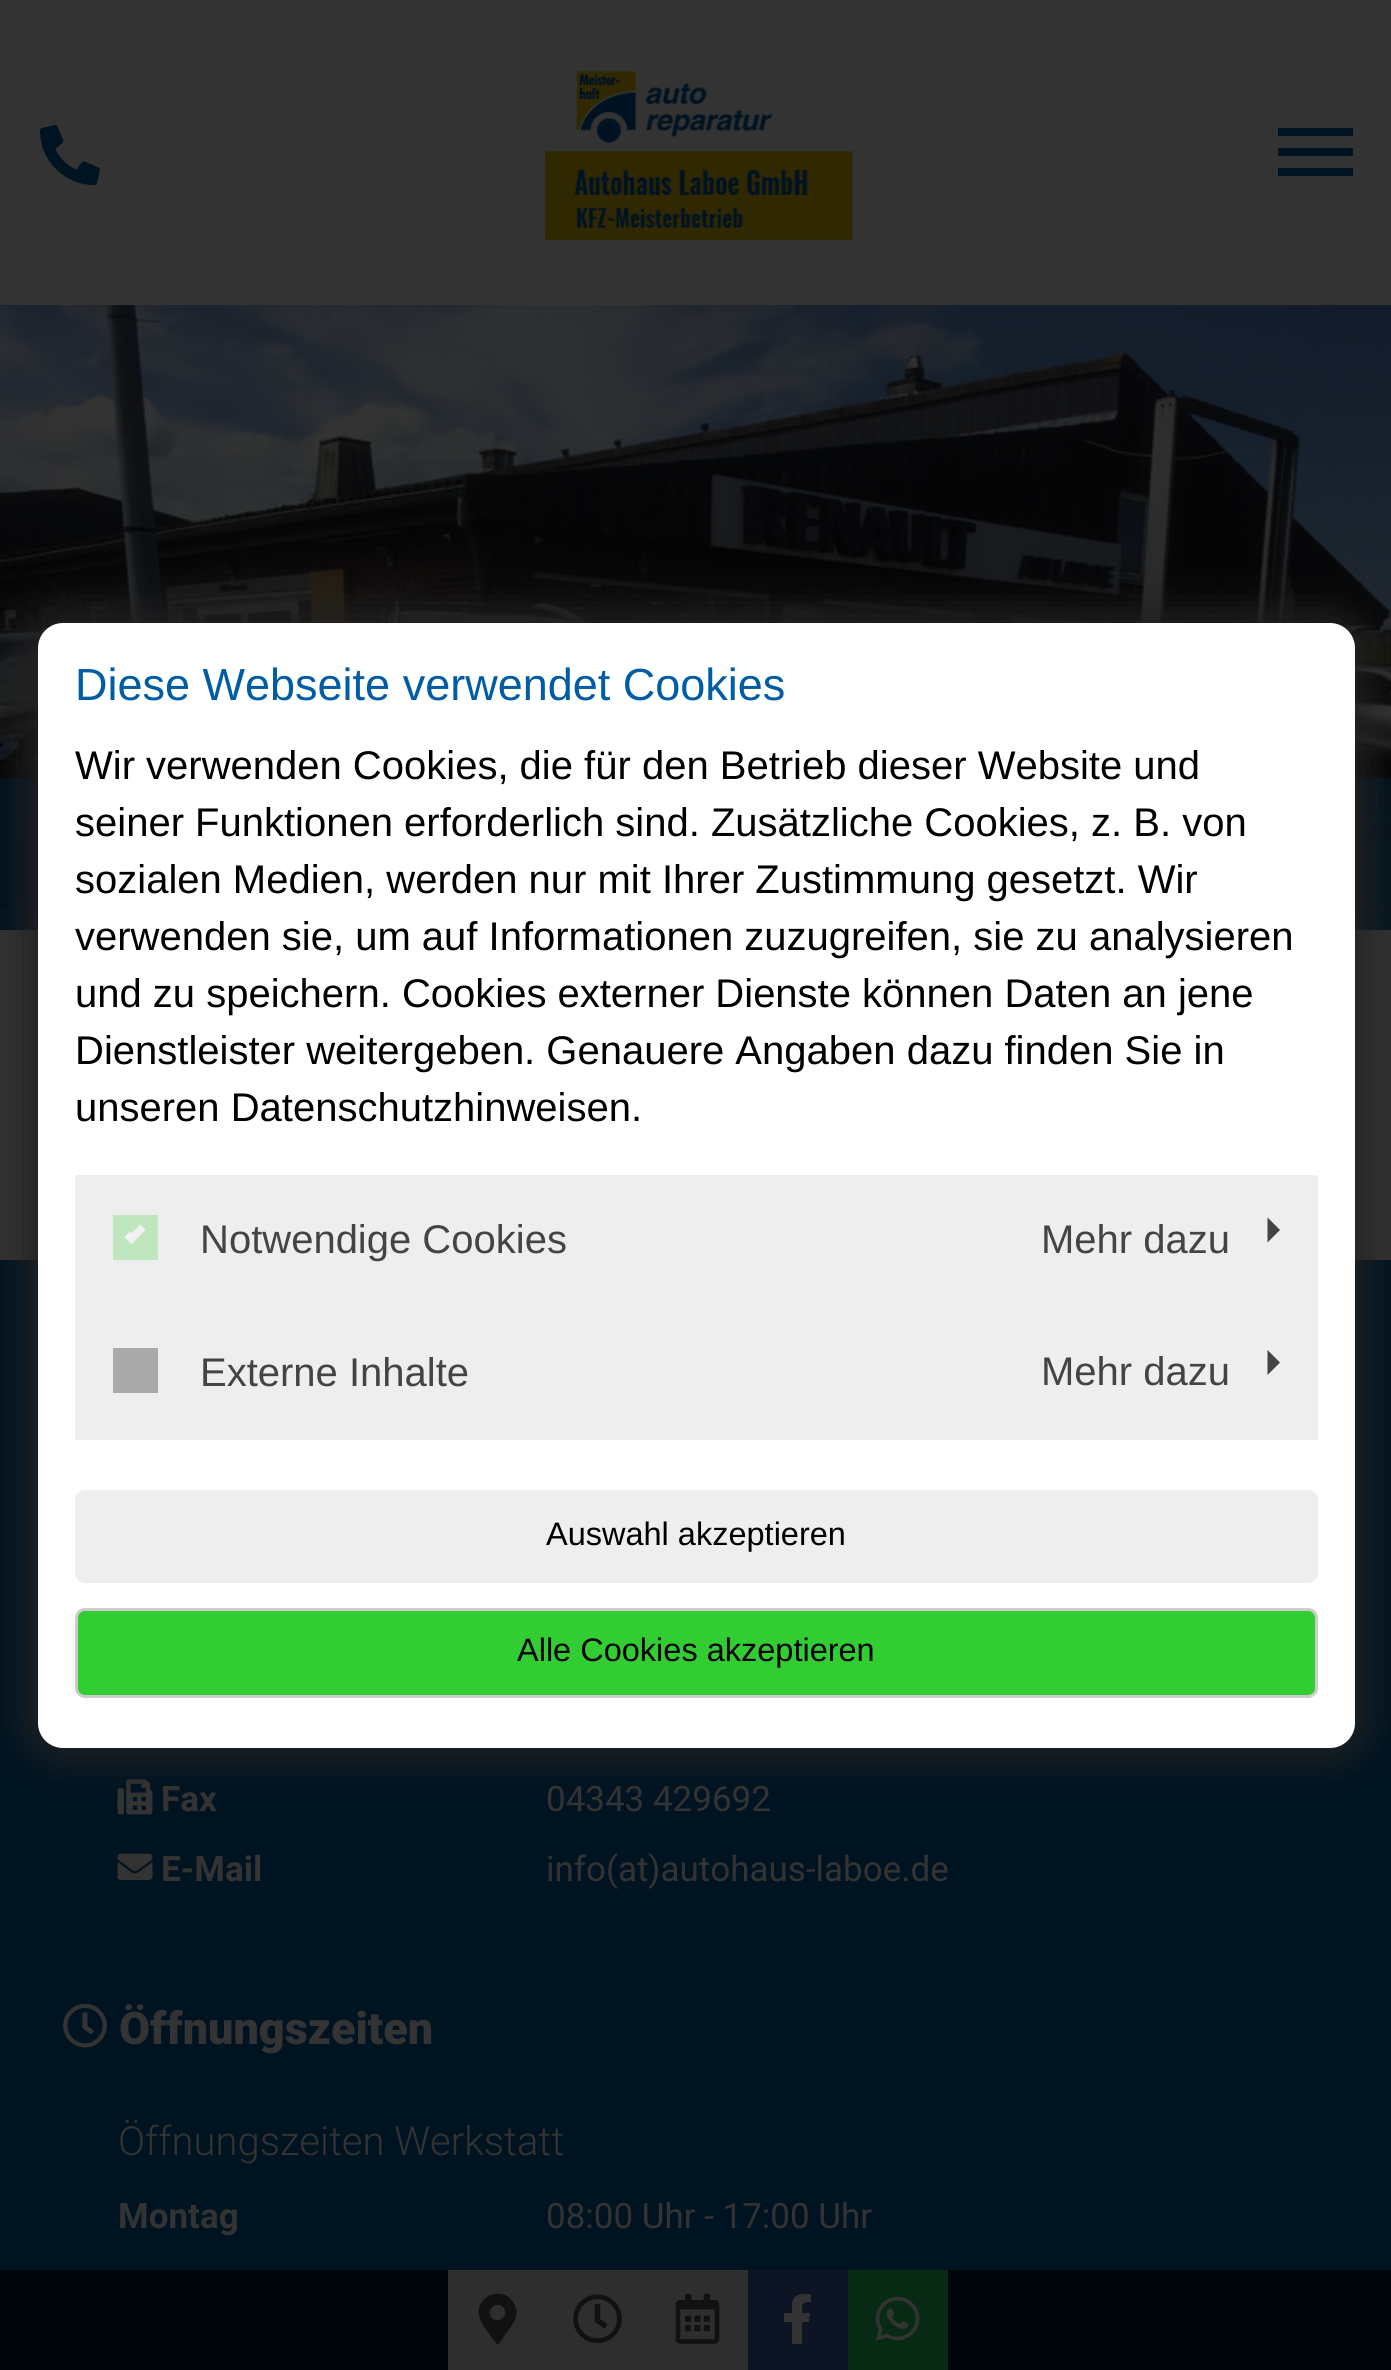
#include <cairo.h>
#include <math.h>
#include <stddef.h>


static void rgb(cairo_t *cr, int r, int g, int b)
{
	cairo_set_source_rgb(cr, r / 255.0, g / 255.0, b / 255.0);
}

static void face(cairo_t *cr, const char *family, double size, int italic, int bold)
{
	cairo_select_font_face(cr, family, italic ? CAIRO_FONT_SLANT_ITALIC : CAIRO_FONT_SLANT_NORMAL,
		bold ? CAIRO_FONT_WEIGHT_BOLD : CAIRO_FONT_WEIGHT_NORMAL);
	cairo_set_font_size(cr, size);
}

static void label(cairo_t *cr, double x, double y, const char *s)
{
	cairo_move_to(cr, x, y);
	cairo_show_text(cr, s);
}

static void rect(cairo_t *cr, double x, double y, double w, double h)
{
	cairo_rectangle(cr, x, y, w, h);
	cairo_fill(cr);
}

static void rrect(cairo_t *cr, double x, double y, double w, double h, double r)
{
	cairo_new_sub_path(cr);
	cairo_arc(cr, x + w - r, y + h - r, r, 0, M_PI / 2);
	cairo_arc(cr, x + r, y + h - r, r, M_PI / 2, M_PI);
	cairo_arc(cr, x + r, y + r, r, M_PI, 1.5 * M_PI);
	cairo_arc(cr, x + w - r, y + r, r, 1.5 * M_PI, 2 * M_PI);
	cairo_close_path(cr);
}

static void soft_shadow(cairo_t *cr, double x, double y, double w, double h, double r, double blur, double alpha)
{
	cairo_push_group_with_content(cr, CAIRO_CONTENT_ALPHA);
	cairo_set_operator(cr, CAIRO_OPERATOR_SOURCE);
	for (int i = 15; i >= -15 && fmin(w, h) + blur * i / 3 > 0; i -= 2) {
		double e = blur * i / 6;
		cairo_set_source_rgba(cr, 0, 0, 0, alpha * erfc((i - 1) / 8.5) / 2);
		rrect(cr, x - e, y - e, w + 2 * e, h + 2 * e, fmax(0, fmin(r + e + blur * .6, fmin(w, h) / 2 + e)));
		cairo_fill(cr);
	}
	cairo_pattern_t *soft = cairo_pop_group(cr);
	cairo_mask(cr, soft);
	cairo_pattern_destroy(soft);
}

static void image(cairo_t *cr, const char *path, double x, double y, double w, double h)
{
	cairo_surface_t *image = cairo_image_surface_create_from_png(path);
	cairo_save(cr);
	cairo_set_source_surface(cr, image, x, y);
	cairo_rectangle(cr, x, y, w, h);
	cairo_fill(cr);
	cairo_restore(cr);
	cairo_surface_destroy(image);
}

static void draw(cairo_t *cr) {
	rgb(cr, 51, 51, 51);
	cairo_paint(cr);
	image(cr, "image2.png", 0, 305, 1391, 625);
	cairo_set_source_rgba(cr, 0, 0.075, 0.129, 0.85);
	rect(cr, 0, 778, 1391, 152);
	rgb(cr, 0, 19, 33);
	rect(cr, 0, 1260, 1391, 1010);
	image(cr, "image3.png", 117, 1779, 36, 36);
	rgb(cr, 34, 34, 34);
	soft_shadow(cr, 25, 610, 1343, 1150, 38, 19, 1);
	rgb(cr, 255, 255, 255);
	rrect(cr, 38, 623, 1317, 1125, 25);
	cairo_fill(cr);
	face(cr, "Liberation Sans", 45, 0, 0);
	rgb(cr, 0, 93, 165);
	label(cr, 75, 700, "Diese Webseite verwendet Cookies");
	face(cr, "Liberation Sans", 40, 0, 0);
	rgb(cr, 0, 0, 0);
	label(cr, 75, 779, "Wir verwenden Cookies, die für den Betrieb dieser Website und");
	label(cr, 75, 836, "seiner Funktionen erforderlich sind. Zusätzliche Cookies, z. B. von");
	label(cr, 75, 893, "sozialen Medien, werden nur mit Ihrer Zustimmung gesetzt. Wir");
	label(cr, 75, 950, "verwenden sie, um auf Informationen zuzugreifen, sie zu analysieren");
	label(cr, 75, 1007, "und zu speichern. Cookies externer Dienste können Daten an jene");
	label(cr, 75, 1064, "Dienstleister weitergeben. Genauere Angaben dazu finden Sie in");
	label(cr, 75, 1121, "unseren Datenschutzhinweisen.");
	rgb(cr, 238, 238, 238);
	rect(cr, 75, 1175, 1243, 265);
	rgb(cr, 191, 230, 191);
	rect(cr, 113, 1215, 45, 45);
	rgb(cr, 242, 242, 242);
	cairo_new_path(cr);
	cairo_move_to(cr, 140.5, 1224.5);
	cairo_line_to(cr, 145.5, 1230);
	cairo_line_to(cr, 131.5, 1244);
	cairo_line_to(cr, 126, 1238.5);
	cairo_close_path(cr);
	cairo_fill(cr);
	cairo_new_path(cr);
	cairo_move_to(cr, 129.5, 1231.5);
	cairo_line_to(cr, 137, 1238.5);
	cairo_line_to(cr, 131.5, 1244);
	cairo_line_to(cr, 124.5, 1237);
	cairo_close_path(cr);
	cairo_fill(cr);
	rgb(cr, 68, 68, 68);
	label(cr, 200, 1253, "Notwendige Cookies");
	label(cr, 1041, 1253, "Mehr dazu");
	cairo_new_path(cr);
	cairo_move_to(cr, 1267.5, 1242.5);
	cairo_line_to(cr, 1267.5, 1217.5);
	cairo_line_to(cr, 1280, 1230);
	cairo_close_path(cr);
	cairo_fill(cr);
	rgb(cr, 170, 170, 170);
	rect(cr, 113, 1348, 45, 45);
	rgb(cr, 68, 68, 68);
	label(cr, 200, 1386, "Externe Inhalte");
	label(cr, 1041, 1385, "Mehr dazu");
	cairo_new_path(cr);
	cairo_move_to(cr, 1267.5, 1375);
	cairo_line_to(cr, 1267.5, 1350);
	cairo_line_to(cr, 1280, 1362.5);
	cairo_close_path(cr);
	cairo_fill(cr);
	rgb(cr, 238, 238, 238);
	rrect(cr, 76.5, 1491.5, 1240, 90, 8.5);
	cairo_fill_preserve(cr);
	cairo_set_line_width(cr, 3);
	cairo_stroke(cr);
	face(cr, "Liberation Sans", 32.5, 0, 0);
	rgb(cr, 0, 0, 0);
	label(cr, 546, 1545, "Auswahl akzeptieren");
	rgb(cr, 50, 205, 50);
	rrect(cr, 76.5, 1609.5, 1240, 87, 8.5);
	cairo_fill_preserve(cr);
	rgb(cr, 204, 204, 204);
	cairo_stroke(cr);
	rgb(cr, 0, 0, 0);
	label(cr, 517, 1661, "Alle Cookies akzeptieren");
	image(cr, "image0.png", 40, 125, 60, 60);
	image(cr, "image1.png", 545, 71, 308, 169);
	rgb(cr, 0, 19, 33);
	rect(cr, 1278, 128, 75, 8);
	rect(cr, 1278, 148, 75, 8);
	rect(cr, 1278, 168, 75, 8);
	rgb(cr, 0, 6, 10);
	rect(cr, 0, 2270, 1391, 100);
	face(cr, "Roboto", 35, 0, 1);
	rgb(cr, 51, 51, 51);
	label(cr, 161, 1811, "Fax");
	face(cr, "Roboto", 35, 0, 0);
	label(cr, 546, 1811, "04343 429692");
	image(cr, "image4.png", 117, 1853, 36, 27);
	face(cr, "Roboto", 35, 0, 1);
	label(cr, 161, 1881, "E-Mail");
	face(cr, "Roboto", 35, 0, 0);
	label(cr, 546, 1881, "info(at)autohaus-laboe.de");
	image(cr, "image5.png", 63, 2003, 44, 45);
	face(cr, "Roboto Black", 45, 0, 0);
	label(cr, 119, 2044, "Öffnungszeiten");
	face(cr, "Roboto Light", 40, 0, 0);
	label(cr, 118, 2155, "Öffnungszeiten Werkstatt");
	face(cr, "Roboto", 35, 0, 1);
	label(cr, 118, 2228, "Montag");
	face(cr, "Roboto", 35, 0, 0);
	label(cr, 546, 2228, "08:00 Uhr - 17:00 Uhr");
	rgb(cr, 46, 46, 46);
	rect(cr, 448, 2270, 300, 100);
	rgb(cr, 17, 17, 17);
	cairo_new_path(cr);
	cairo_move_to(cr, 496, 2343);
	cairo_curve_to(cr, 491, 2337, 481, 2324, 479, 2316);
	cairo_curve_to(cr, 475, 2296, 502, 2285, 513, 2302);
	cairo_curve_to(cr, 522, 2315, 512, 2325, 505, 2335);
	cairo_line_to(cr, 499, 2344);
	cairo_curve_to(cr, 498, 2344, 496, 2344, 496, 2343);
	cairo_close_path(cr);
	cairo_move_to(cr, 492, 2318);
	cairo_curve_to(cr, 499, 2325, 510, 2314, 503, 2307);
	cairo_curve_to(cr, 496, 2300, 485, 2311, 492, 2318);
	cairo_close_path(cr);
	cairo_fill(cr);
	rgb(cr, 13, 21, 36);
	rect(cr, 748, 2270, 100, 100);
	rgb(cr, 51, 51, 51);
	cairo_new_path(cr);
	cairo_move_to(cr, 809, 2322);
	cairo_line_to(cr, 802, 2322);
	cairo_line_to(cr, 802, 2344);
	cairo_line_to(cr, 792, 2344);
	cairo_line_to(cr, 792, 2322);
	cairo_line_to(cr, 784, 2322);
	cairo_line_to(cr, 784, 2313);
	cairo_line_to(cr, 792, 2313);
	cairo_line_to(cr, 792, 2303);
	cairo_curve_to(cr, 794, 2293, 803, 2294, 811, 2294);
	cairo_line_to(cr, 811, 2302);
	cairo_curve_to(cr, 801, 2302, 802, 2304, 802, 2313);
	cairo_line_to(cr, 810, 2313);
	cairo_close_path(cr);
	cairo_fill(cr);
	rgb(cr, 8, 42, 20);
	rect(cr, 848, 2270, 100, 100);
	image(cr, "image6.png", 875, 2296, 45, 45);
	image(cr, "image7.png", 573, 2294, 49, 49);
	image(cr, "image8.png", 675, 2293, 45, 51);
}

int main(void) {
	cairo_surface_t *surface = cairo_image_surface_create(CAIRO_FORMAT_RGB24, 1391, 2370);
	cairo_t *cr = cairo_create(surface);
	cairo_font_options_t *options = cairo_font_options_create();
	cairo_font_options_set_hint_metrics(options, CAIRO_HINT_METRICS_OFF);
	cairo_font_options_set_hint_style(options, CAIRO_HINT_STYLE_NONE);
	cairo_set_font_options(cr, options);
	cairo_set_miter_limit(cr, 4);
	draw(cr);
	cairo_surface_write_to_png(surface, "render.png");
	cairo_font_options_destroy(options);
	cairo_destroy(cr);
	cairo_surface_destroy(surface);
	return 0;
}
